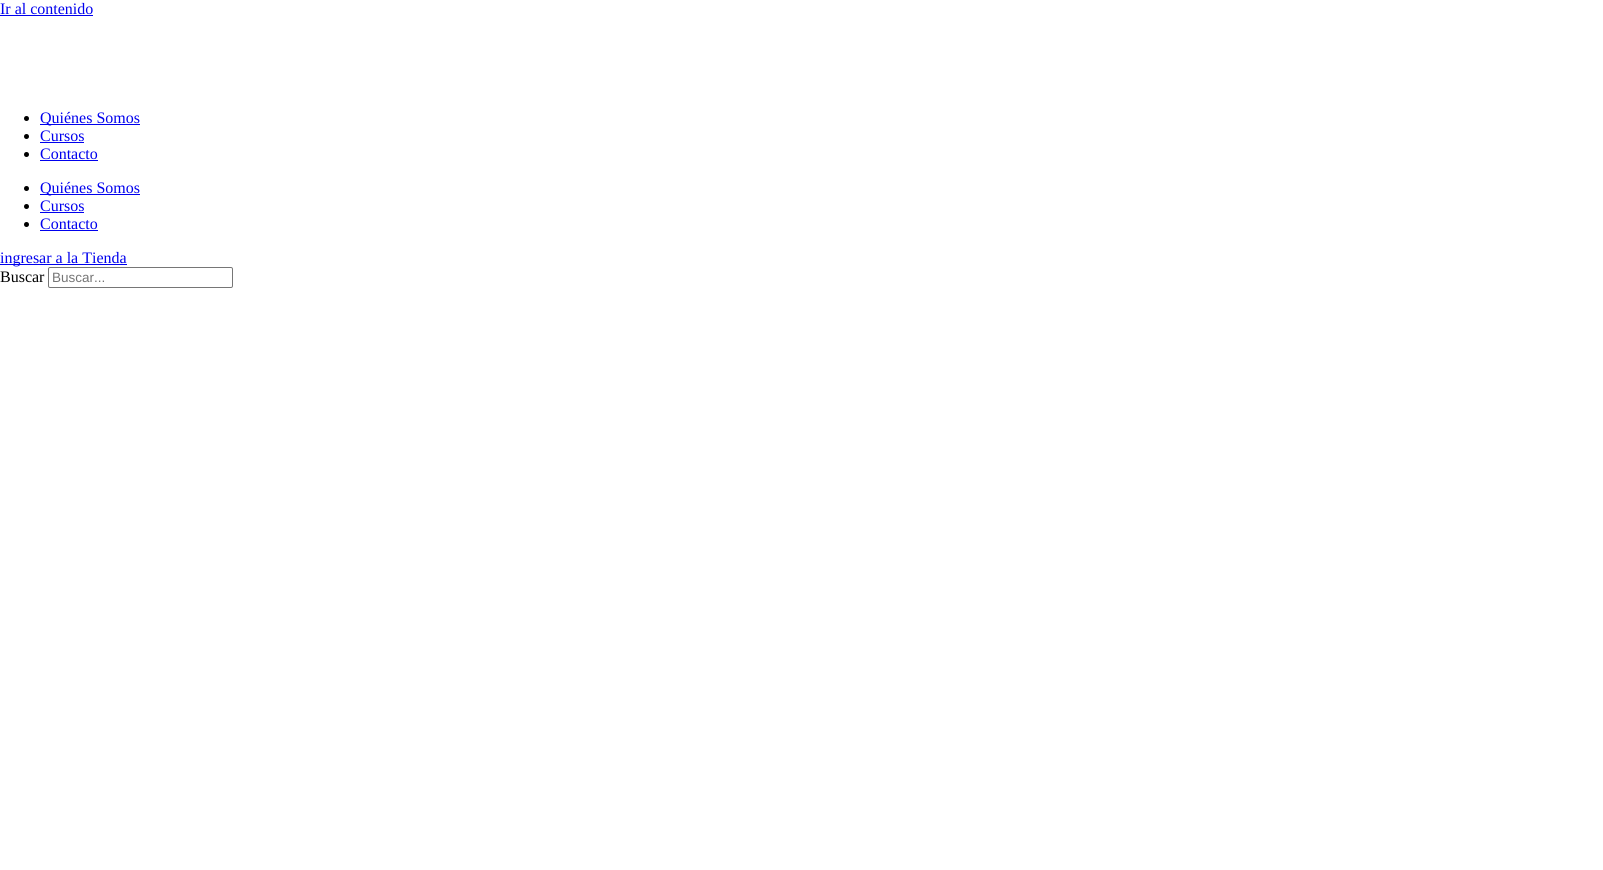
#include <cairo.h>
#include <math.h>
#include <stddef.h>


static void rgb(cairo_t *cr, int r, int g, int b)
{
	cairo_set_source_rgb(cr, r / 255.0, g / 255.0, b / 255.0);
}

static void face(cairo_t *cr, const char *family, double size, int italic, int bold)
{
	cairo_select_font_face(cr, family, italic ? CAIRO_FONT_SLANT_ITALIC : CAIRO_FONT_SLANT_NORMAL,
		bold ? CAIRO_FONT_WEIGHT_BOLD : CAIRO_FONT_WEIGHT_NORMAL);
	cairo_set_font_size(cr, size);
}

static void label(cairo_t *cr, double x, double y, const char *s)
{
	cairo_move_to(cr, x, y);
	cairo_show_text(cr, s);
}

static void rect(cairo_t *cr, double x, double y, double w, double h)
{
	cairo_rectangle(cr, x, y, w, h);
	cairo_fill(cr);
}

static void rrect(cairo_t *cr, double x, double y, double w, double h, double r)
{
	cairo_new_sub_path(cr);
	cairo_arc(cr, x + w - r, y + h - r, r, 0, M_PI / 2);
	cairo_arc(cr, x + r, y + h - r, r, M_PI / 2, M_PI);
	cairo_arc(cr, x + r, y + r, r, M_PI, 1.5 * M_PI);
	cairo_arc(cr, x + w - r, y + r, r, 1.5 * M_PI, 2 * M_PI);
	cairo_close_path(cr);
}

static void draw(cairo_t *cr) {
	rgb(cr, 255, 255, 255);
	cairo_paint(cr);
	face(cr, "Liberation Serif", 16, 0, 0);
	rgb(cr, 0, 0, 238);
	label(cr, 0, 14, "Ir al contenido");
	rect(cr, 0, 15, 93, 1);
	rgb(cr, 0, 0, 0);
	cairo_new_path(cr);
	cairo_arc(cr, 26.5, 118.5, 2.5, 0, 2 * M_PI);
	cairo_fill(cr);
	rgb(cr, 0, 0, 238);
	rect(cr, 40, 124, 100, 1);
	label(cr, 40, 123, "Quiénes Somos");
	rgb(cr, 0, 0, 0);
	cairo_new_path(cr);
	cairo_arc(cr, 26.5, 136.5, 2.5, 0, 2 * M_PI);
	cairo_fill(cr);
	rgb(cr, 0, 0, 238);
	label(cr, 40, 141, "Cursos");
	rect(cr, 40, 142, 44, 1);
	rgb(cr, 0, 0, 0);
	cairo_new_path(cr);
	cairo_arc(cr, 26.5, 154.5, 2.5, 0, 2 * M_PI);
	cairo_fill(cr);
	rgb(cr, 0, 0, 238);
	label(cr, 40, 159, "Contacto");
	rect(cr, 40, 160, 58, 1);
	rgb(cr, 0, 0, 0);
	cairo_new_path(cr);
	cairo_arc(cr, 26.5, 188.5, 2.5, 0, 2 * M_PI);
	cairo_fill(cr);
	rgb(cr, 0, 0, 238);
	rect(cr, 40, 194, 100, 1);
	label(cr, 40, 193, "Quiénes Somos");
	rgb(cr, 0, 0, 0);
	cairo_new_path(cr);
	cairo_arc(cr, 26.5, 206.5, 2.5, 0, 2 * M_PI);
	cairo_fill(cr);
	rgb(cr, 0, 0, 238);
	label(cr, 40, 211, "Cursos");
	rect(cr, 40, 212, 44, 1);
	rgb(cr, 0, 0, 0);
	cairo_new_path(cr);
	cairo_arc(cr, 26.5, 224.5, 2.5, 0, 2 * M_PI);
	cairo_fill(cr);
	rgb(cr, 0, 0, 238);
	label(cr, 40, 229, "Contacto");
	rect(cr, 40, 230, 58, 1);
	rect(cr, 0, 264, 127, 1);
	label(cr, 0, 263, "ingresar a la Tienda");
	rgb(cr, 0, 0, 0);
	label(cr, 0, 282, "Buscar");
	rrect(cr, 48.5, 267.5, 184, 20, 1.5);
	rgb(cr, 118, 118, 118);
	cairo_set_line_width(cr, 1);
	cairo_stroke(cr);
	face(cr, "Liberation Sans", 13.5, 0, 0);
	rgb(cr, 117, 117, 117);
	label(cr, 52, 282, "Buscar...");
}

int main(void) {
	cairo_surface_t *surface = cairo_image_surface_create(CAIRO_FORMAT_RGB24, 1603, 870);
	cairo_t *cr = cairo_create(surface);
	cairo_font_options_t *options = cairo_font_options_create();
	cairo_font_options_set_hint_metrics(options, CAIRO_HINT_METRICS_OFF);
	cairo_font_options_set_hint_style(options, CAIRO_HINT_STYLE_NONE);
	cairo_set_font_options(cr, options);
	cairo_set_miter_limit(cr, 4);
	draw(cr);
	cairo_surface_write_to_png(surface, "render.png");
	cairo_font_options_destroy(options);
	cairo_destroy(cr);
	cairo_surface_destroy(surface);
	return 0;
}
